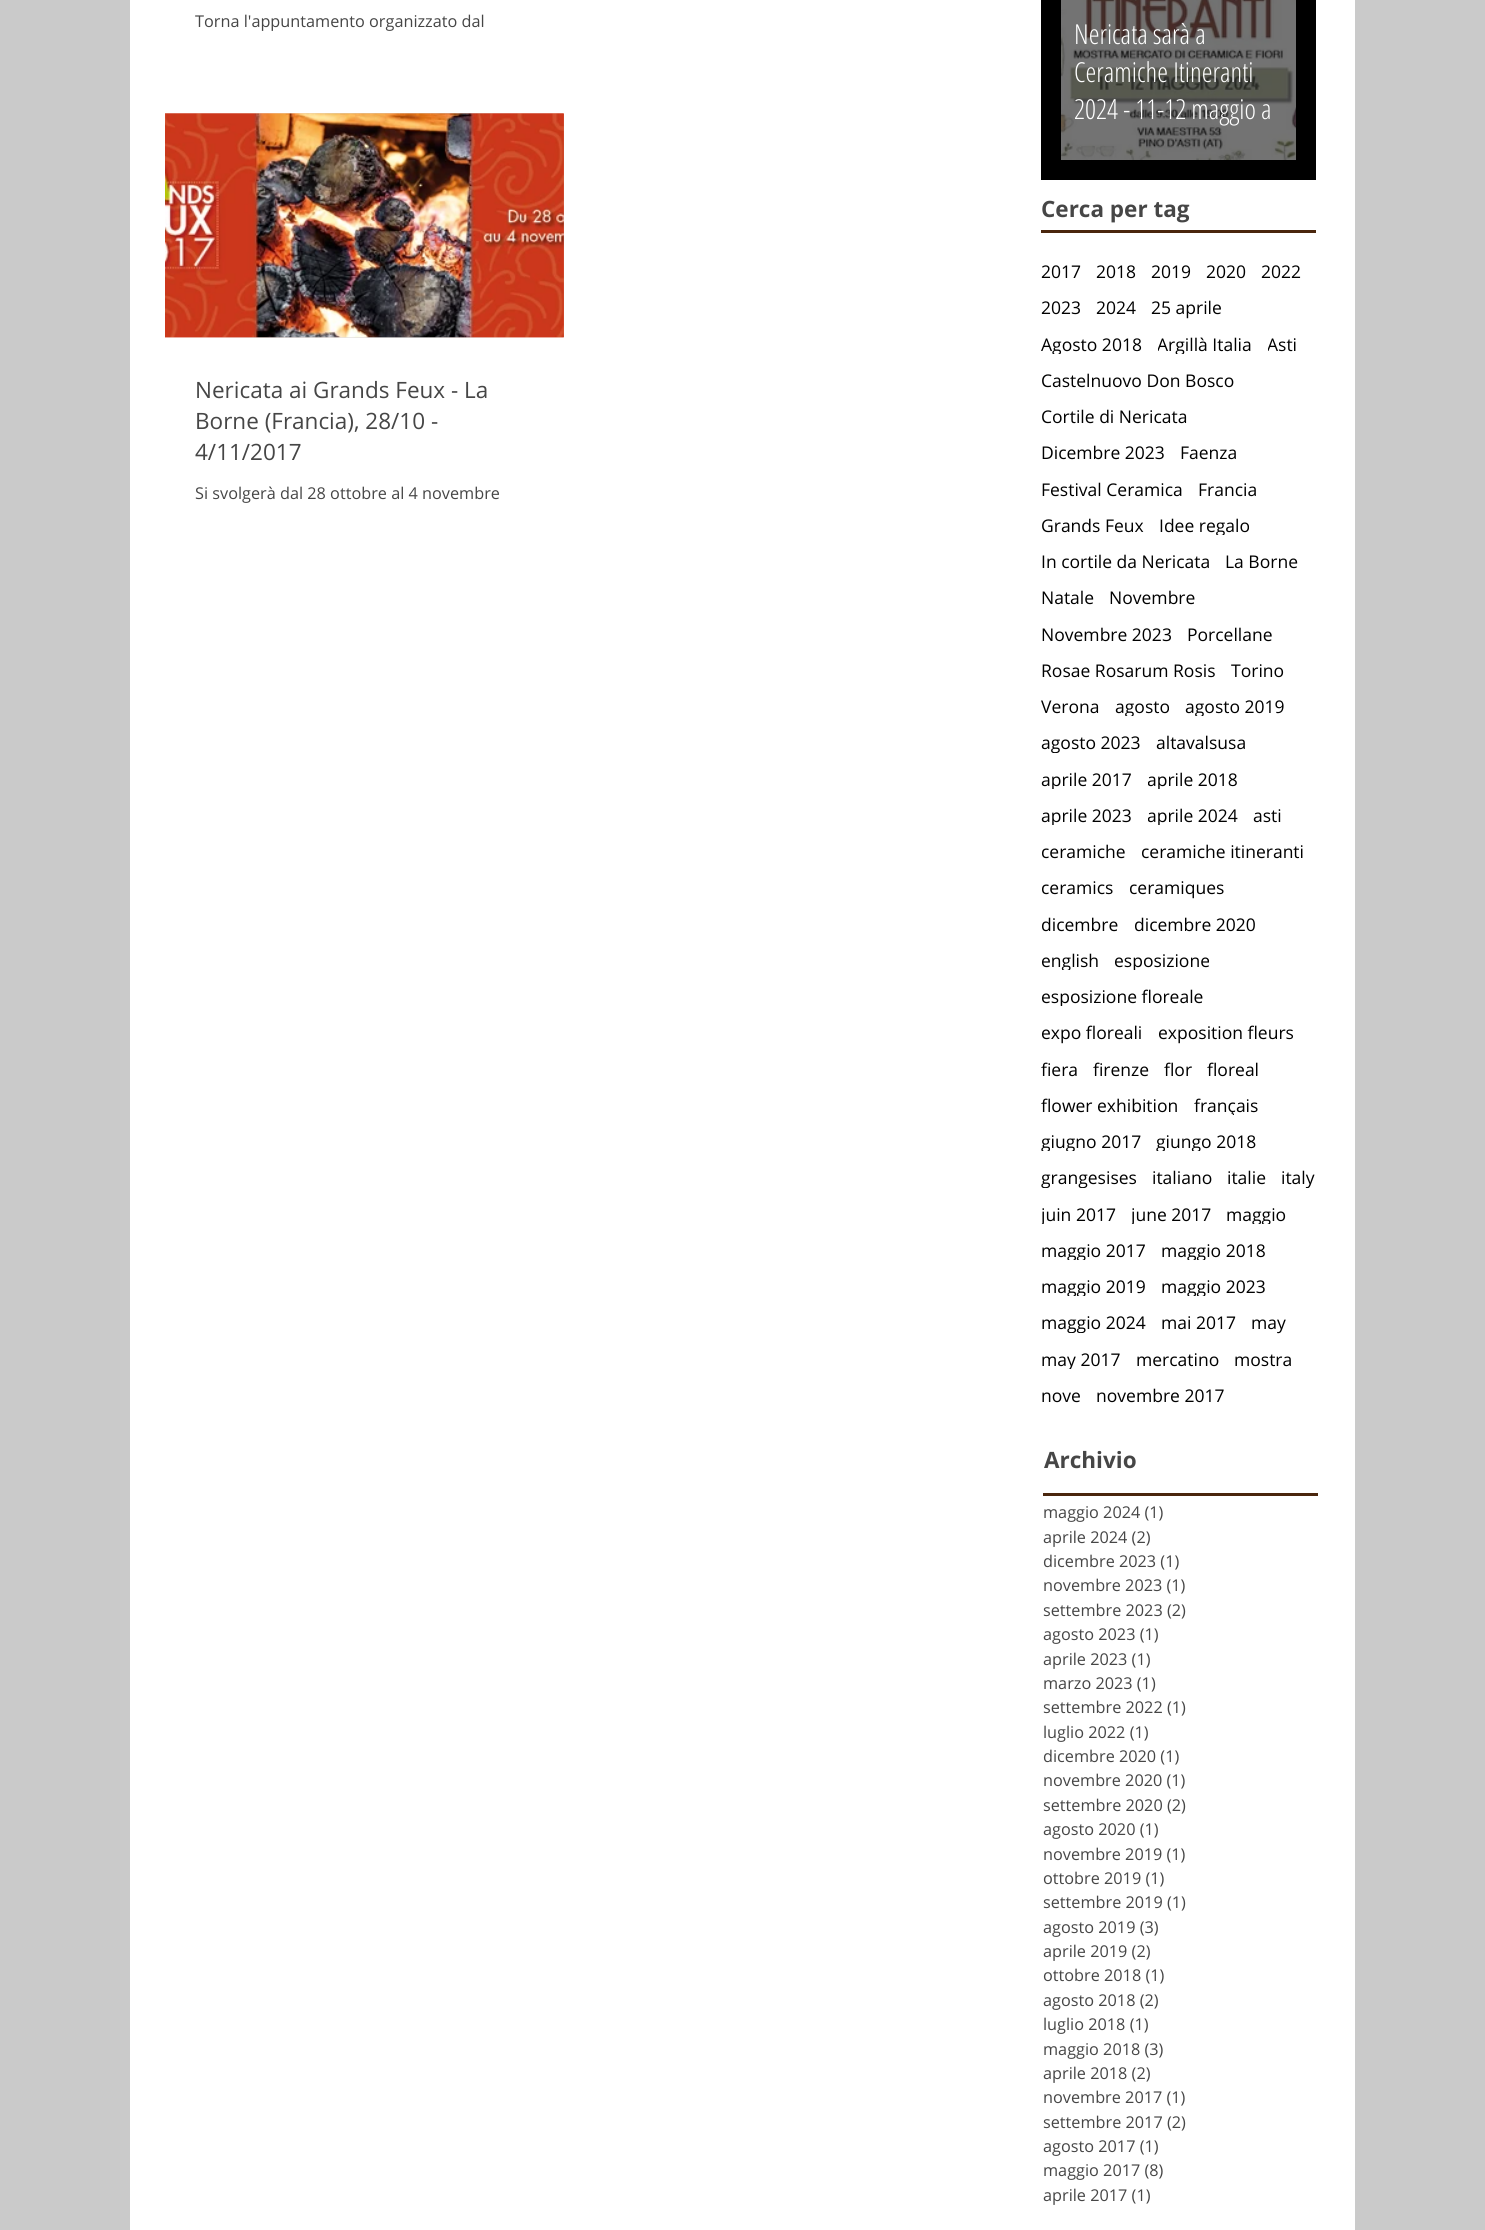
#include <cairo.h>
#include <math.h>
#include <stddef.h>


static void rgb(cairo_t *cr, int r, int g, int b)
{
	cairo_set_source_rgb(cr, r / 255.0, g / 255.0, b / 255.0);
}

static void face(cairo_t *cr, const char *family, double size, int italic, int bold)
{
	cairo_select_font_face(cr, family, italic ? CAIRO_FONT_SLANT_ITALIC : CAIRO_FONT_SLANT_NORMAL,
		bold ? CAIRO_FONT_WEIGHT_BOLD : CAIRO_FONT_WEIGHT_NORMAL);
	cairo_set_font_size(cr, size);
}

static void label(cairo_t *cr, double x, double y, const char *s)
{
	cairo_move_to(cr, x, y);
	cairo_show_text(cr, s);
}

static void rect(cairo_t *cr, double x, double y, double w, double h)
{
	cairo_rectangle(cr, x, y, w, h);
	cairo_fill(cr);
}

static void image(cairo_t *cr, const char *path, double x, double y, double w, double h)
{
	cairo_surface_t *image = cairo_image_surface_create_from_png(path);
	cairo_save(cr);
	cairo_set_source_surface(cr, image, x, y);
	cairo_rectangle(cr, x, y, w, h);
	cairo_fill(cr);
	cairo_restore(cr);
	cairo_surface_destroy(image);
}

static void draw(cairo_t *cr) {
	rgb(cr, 202, 202, 202);
	cairo_paint(cr);
	rgb(cr, 255, 255, 255);
	rect(cr, 130, 0, 1225, 2230);
	face(cr, "Open Sans", 16.25, 0, 0);
	rgb(cr, 70, 70, 70);
	label(cr, 195, 27, "Torna l'appuntamento organizzato dal");
	image(cr, "image0.png", 165, 113, 399, 225);
	image(cr, "image1.png", 165, 113, 399, 225);
	face(cr, "Open Sans", 22.5, 0, 0);
	label(cr, 195, 398, "Nericata ai Grands Feux - La");
	label(cr, 195, 429, "Borne (Francia), 28/10 -");
	label(cr, 195, 460, "4/11/2017");
	face(cr, "Open Sans", 16.25, 0, 0);
	label(cr, 195, 499, "Si svolgerà dal 28 ottobre al 4 novembre");
	rgb(cr, 0, 0, 0);
	rect(cr, 1041, 0, 275, 180);
	image(cr, "image2.png", 1061, 0, 235, 160);
	face(cr, "Open Sans Condensed Light", 27.5, 0, 0);
	rgb(cr, 255, 255, 255);
	label(cr, 1074, 44, "Nericata sarà a");
	label(cr, 1074, 82, "Ceramiche Itineranti");
	label(cr, 1074, 119, "2024 - 11-12 maggio a");
	face(cr, "Open Sans", 22.5, 0, 1);
	rgb(cr, 70, 70, 70);
	label(cr, 1041, 217, "Cerca per tag");
	rgb(cr, 74, 38, 13);
	rect(cr, 1041, 230, 275, 3);
	face(cr, "Open Sans", 17.5, 0, 0);
	rgb(cr, 0, 0, 0);
	label(cr, 1041, 278, "2017");
	label(cr, 1096, 278, "2018");
	label(cr, 1151, 278, "2019");
	label(cr, 1206, 278, "2020");
	label(cr, 1261, 278, "2022");
	label(cr, 1041, 314, "2023");
	label(cr, 1096, 314, "2024");
	label(cr, 1151, 314, "25 aprile");
	cairo_save(cr);
	cairo_rectangle(cr, 1041, 333, 102, 21);
	cairo_clip(cr);
	label(cr, 1041, 351, "Agosto 2018");
	cairo_restore(cr);
	cairo_save(cr);
	cairo_rectangle(cr, 1158, 333, 95, 21);
	cairo_clip(cr);
	label(cr, 1157, 351, "Argillà Italia");
	cairo_restore(cr);
	cairo_save(cr);
	cairo_rectangle(cr, 1268, 333, 30, 21);
	cairo_clip(cr);
	label(cr, 1267, 351, "Asti");
	cairo_restore(cr);
	label(cr, 1041, 387, "Castelnuovo Don Bosco");
	label(cr, 1041, 423, "Cortile di Nericata");
	label(cr, 1041, 459, "Dicembre 2023");
	label(cr, 1180, 459, "Faenza");
	label(cr, 1041, 496, "Festival Ceramica");
	label(cr, 1198, 496, "Francia");
	label(cr, 1041, 532, "Grands Feux");
	cairo_save(cr);
	cairo_rectangle(cr, 1159, 514, 91, 21);
	cairo_clip(cr);
	label(cr, 1159, 532, "Idee regalo");
	cairo_restore(cr);
	label(cr, 1041, 568, "In cortile da Nericata");
	label(cr, 1225, 568, "La Borne");
	label(cr, 1041, 604, "Natale");
	label(cr, 1109, 604, "Novembre");
	label(cr, 1041, 641, "Novembre 2023");
	label(cr, 1187, 641, "Porcellane");
	label(cr, 1041, 677, "Rosae Rosarum Rosis");
	label(cr, 1231, 677, "Torino");
	label(cr, 1041, 713, "Verona");
	cairo_save(cr);
	cairo_rectangle(cr, 1115, 695, 55, 21);
	cairo_clip(cr);
	label(cr, 1115, 713, "agosto");
	cairo_restore(cr);
	cairo_save(cr);
	cairo_rectangle(cr, 1185, 695, 99, 21);
	cairo_clip(cr);
	label(cr, 1185, 713, "agosto 2019");
	cairo_restore(cr);
	cairo_save(cr);
	cairo_rectangle(cr, 1041, 731, 100, 22);
	cairo_clip(cr);
	label(cr, 1041, 749, "agosto 2023");
	cairo_restore(cr);
	label(cr, 1156, 749, "altavalsusa");
	cairo_save(cr);
	cairo_rectangle(cr, 1041, 768, 92, 21);
	cairo_clip(cr);
	label(cr, 1041, 786, "aprile 2017");
	cairo_restore(cr);
	cairo_save(cr);
	cairo_rectangle(cr, 1148, 768, 90, 21);
	cairo_clip(cr);
	label(cr, 1147, 786, "aprile 2018");
	cairo_restore(cr);
	cairo_save(cr);
	cairo_rectangle(cr, 1041, 804, 92, 21);
	cairo_clip(cr);
	label(cr, 1041, 822, "aprile 2023");
	cairo_restore(cr);
	cairo_save(cr);
	cairo_rectangle(cr, 1148, 804, 90, 21);
	cairo_clip(cr);
	label(cr, 1147, 822, "aprile 2024");
	cairo_restore(cr);
	label(cr, 1253, 822, "asti");
	label(cr, 1041, 858, "ceramiche");
	label(cr, 1141, 858, "ceramiche itineranti");
	label(cr, 1041, 894, "ceramics");
	label(cr, 1129, 894, "ceramiques");
	label(cr, 1041, 931, "dicembre");
	label(cr, 1134, 931, "dicembre 2020");
	cairo_save(cr);
	cairo_rectangle(cr, 1041, 949, 58, 21);
	cairo_clip(cr);
	label(cr, 1041, 967, "english");
	cairo_restore(cr);
	cairo_save(cr);
	cairo_rectangle(cr, 1114, 949, 96, 21);
	cairo_clip(cr);
	label(cr, 1114, 967, "esposizione");
	cairo_restore(cr);
	cairo_save(cr);
	cairo_rectangle(cr, 1041, 985, 163, 21);
	cairo_clip(cr);
	label(cr, 1041, 1003, "esposizione floreale");
	cairo_restore(cr);
	label(cr, 1041, 1039, "expo floreali");
	label(cr, 1158, 1039, "exposition fleurs");
	label(cr, 1041, 1076, "fiera");
	label(cr, 1093, 1076, "firenze");
	label(cr, 1164, 1076, "flor");
	label(cr, 1207, 1076, "floreal");
	label(cr, 1041, 1112, "flower exhibition");
	cairo_save(cr);
	cairo_rectangle(cr, 1194, 1094, 64, 21);
	cairo_clip(cr);
	label(cr, 1194, 1112, "français");
	cairo_restore(cr);
	cairo_save(cr);
	cairo_rectangle(cr, 1041, 1130, 100, 21);
	cairo_clip(cr);
	label(cr, 1041, 1148, "giugno 2017");
	cairo_restore(cr);
	cairo_save(cr);
	cairo_rectangle(cr, 1156, 1130, 100, 21);
	cairo_clip(cr);
	label(cr, 1156, 1148, "giungo 2018");
	cairo_restore(cr);
	cairo_save(cr);
	cairo_rectangle(cr, 1041, 1166, 97, 22);
	cairo_clip(cr);
	label(cr, 1041, 1184, "grangesises");
	cairo_restore(cr);
	label(cr, 1152, 1184, "italiano");
	label(cr, 1227, 1184, "italie");
	cairo_save(cr);
	cairo_rectangle(cr, 1281, 1166, 34, 22);
	cairo_clip(cr);
	label(cr, 1281, 1184, "italy");
	cairo_restore(cr);
	cairo_save(cr);
	cairo_rectangle(cr, 1041, 1203, 75, 21);
	cairo_clip(cr);
	label(cr, 1041, 1221, "juin 2017");
	cairo_restore(cr);
	cairo_save(cr);
	cairo_rectangle(cr, 1131, 1203, 80, 21);
	cairo_clip(cr);
	label(cr, 1131, 1221, "june 2017");
	cairo_restore(cr);
	cairo_save(cr);
	cairo_rectangle(cr, 1226, 1203, 60, 21);
	cairo_clip(cr);
	label(cr, 1226, 1221, "maggio");
	cairo_restore(cr);
	cairo_save(cr);
	cairo_rectangle(cr, 1041, 1239, 105, 21);
	cairo_clip(cr);
	label(cr, 1041, 1257, "maggio 2017");
	cairo_restore(cr);
	cairo_save(cr);
	cairo_rectangle(cr, 1161, 1239, 105, 21);
	cairo_clip(cr);
	label(cr, 1161, 1257, "maggio 2018");
	cairo_restore(cr);
	cairo_save(cr);
	cairo_rectangle(cr, 1041, 1275, 105, 21);
	cairo_clip(cr);
	label(cr, 1041, 1293, "maggio 2019");
	cairo_restore(cr);
	cairo_save(cr);
	cairo_rectangle(cr, 1161, 1275, 105, 21);
	cairo_clip(cr);
	label(cr, 1161, 1293, "maggio 2023");
	cairo_restore(cr);
	cairo_save(cr);
	cairo_rectangle(cr, 1041, 1311, 105, 22);
	cairo_clip(cr);
	label(cr, 1041, 1329, "maggio 2024");
	cairo_restore(cr);
	label(cr, 1161, 1329, "mai 2017");
	label(cr, 1251, 1329, "may");
	cairo_save(cr);
	cairo_rectangle(cr, 1041, 1348, 80, 21);
	cairo_clip(cr);
	label(cr, 1041, 1366, "may 2017");
	cairo_restore(cr);
	label(cr, 1136, 1366, "mercatino");
	label(cr, 1234, 1366, "mostra");
	label(cr, 1041, 1402, "nove");
	label(cr, 1096, 1402, "novembre 2017");
	face(cr, "Open Sans", 22.5, 0, 1);
	rgb(cr, 70, 70, 70);
	label(cr, 1044, 1468, "Archivio");
	rgb(cr, 74, 38, 13);
	rect(cr, 1043, 1493, 275, 3);
	face(cr, "Open Sans", 16.25, 0, 0);
	rgb(cr, 70, 70, 70);
	label(cr, 1043, 1518, "maggio 2024 (1)");
	label(cr, 1043, 1543, "aprile 2024 (2)");
	label(cr, 1043, 1567, "dicembre 2023 (1)");
	label(cr, 1043, 1591, "novembre 2023 (1)");
	label(cr, 1043, 1616, "settembre 2023 (2)");
	label(cr, 1043, 1640, "agosto 2023 (1)");
	label(cr, 1043, 1665, "aprile 2023 (1)");
	label(cr, 1043, 1689, "marzo 2023 (1)");
	label(cr, 1043, 1713, "settembre 2022 (1)");
	label(cr, 1043, 1738, "luglio 2022 (1)");
	label(cr, 1043, 1762, "dicembre 2020 (1)");
	label(cr, 1043, 1786, "novembre 2020 (1)");
	label(cr, 1043, 1811, "settembre 2020 (2)");
	label(cr, 1043, 1835, "agosto 2020 (1)");
	label(cr, 1043, 1860, "novembre 2019 (1)");
	label(cr, 1043, 1884, "ottobre 2019 (1)");
	label(cr, 1043, 1908, "settembre 2019 (1)");
	label(cr, 1043, 1933, "agosto 2019 (3)");
	label(cr, 1043, 1957, "aprile 2019 (2)");
	label(cr, 1043, 1981, "ottobre 2018 (1)");
	label(cr, 1043, 2006, "agosto 2018 (2)");
	label(cr, 1043, 2030, "luglio 2018 (1)");
	label(cr, 1043, 2055, "maggio 2018 (3)");
	label(cr, 1043, 2079, "aprile 2018 (2)");
	label(cr, 1043, 2103, "novembre 2017 (1)");
	label(cr, 1043, 2128, "settembre 2017 (2)");
	label(cr, 1043, 2152, "agosto 2017 (1)");
	label(cr, 1043, 2176, "maggio 2017 (8)");
	label(cr, 1043, 2201, "aprile 2017 (1)");
}

int main(void) {
	cairo_surface_t *surface = cairo_image_surface_create(CAIRO_FORMAT_RGB24, 1485, 2230);
	cairo_t *cr = cairo_create(surface);
	cairo_font_options_t *options = cairo_font_options_create();
	cairo_font_options_set_hint_metrics(options, CAIRO_HINT_METRICS_OFF);
	cairo_font_options_set_hint_style(options, CAIRO_HINT_STYLE_NONE);
	cairo_set_font_options(cr, options);
	cairo_set_miter_limit(cr, 4);
	draw(cr);
	cairo_surface_write_to_png(surface, "render.png");
	cairo_font_options_destroy(options);
	cairo_destroy(cr);
	cairo_surface_destroy(surface);
	return 0;
}
